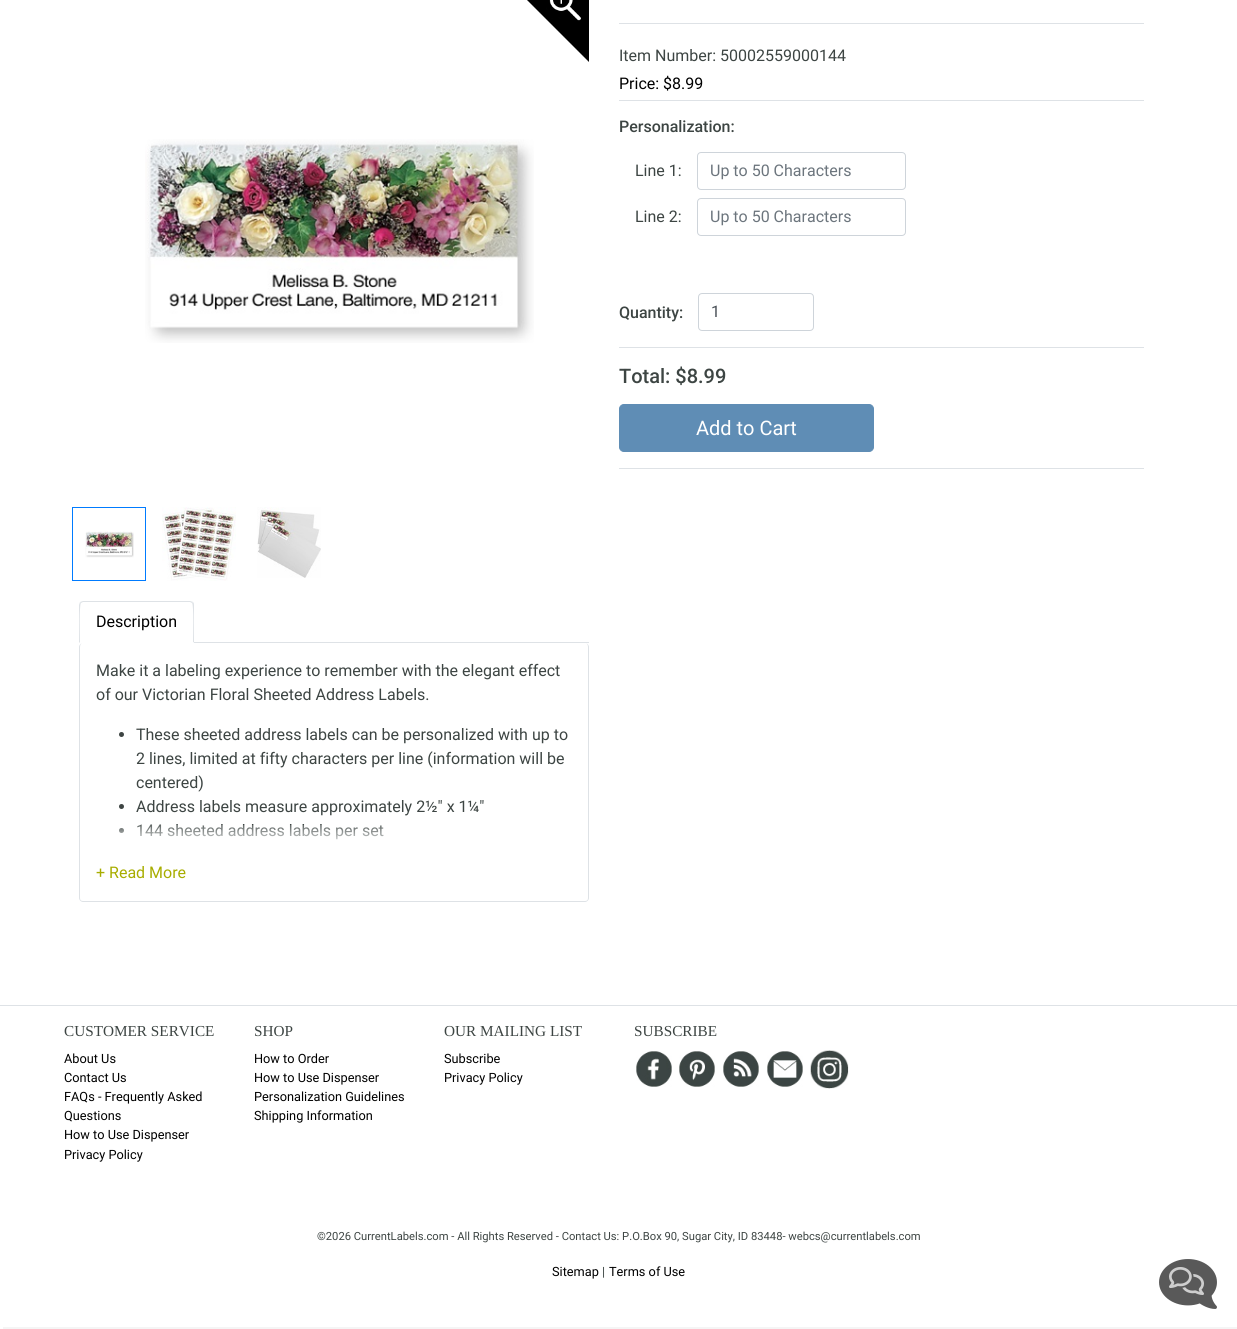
#include <cairo.h>
#include <math.h>
#include <stddef.h>


static void rgb(cairo_t *cr, int r, int g, int b)
{
	cairo_set_source_rgb(cr, r / 255.0, g / 255.0, b / 255.0);
}

static void face(cairo_t *cr, const char *family, double size, int italic, int bold)
{
	cairo_select_font_face(cr, family, italic ? CAIRO_FONT_SLANT_ITALIC : CAIRO_FONT_SLANT_NORMAL,
		bold ? CAIRO_FONT_WEIGHT_BOLD : CAIRO_FONT_WEIGHT_NORMAL);
	cairo_set_font_size(cr, size);
}

static void label(cairo_t *cr, double x, double y, const char *s)
{
	cairo_move_to(cr, x, y);
	cairo_show_text(cr, s);
}

static void rect(cairo_t *cr, double x, double y, double w, double h)
{
	cairo_rectangle(cr, x, y, w, h);
	cairo_fill(cr);
}

static void rrect(cairo_t *cr, double x, double y, double w, double h, double r)
{
	cairo_new_sub_path(cr);
	cairo_arc(cr, x + w - r, y + h - r, r, 0, M_PI / 2);
	cairo_arc(cr, x + r, y + h - r, r, M_PI / 2, M_PI);
	cairo_arc(cr, x + r, y + r, r, M_PI, 1.5 * M_PI);
	cairo_arc(cr, x + w - r, y + r, r, 1.5 * M_PI, 2 * M_PI);
	cairo_close_path(cr);
}

static void image(cairo_t *cr, const char *path, double x, double y, double w, double h)
{
	cairo_surface_t *image = cairo_image_surface_create_from_png(path);
	cairo_save(cr);
	cairo_set_source_surface(cr, image, x, y);
	cairo_rectangle(cr, x, y, w, h);
	cairo_fill(cr);
	cairo_restore(cr);
	cairo_surface_destroy(image);
}

static void draw(cairo_t *cr) {
	cairo_pattern_t *gradient;
	rgb(cr, 255, 255, 255);
	cairo_paint(cr);
	rgb(cr, 222, 226, 230);
	rect(cr, 619, 23, 525, 1);
	rect(cr, 619, 100, 525, 1);
	face(cr, "Roboto", 16, 0, 0);
	rgb(cr, 61, 69, 67);
	label(cr, 619, 61, "Item Number: 50002559000144");
	rgb(cr, 0, 0, 0);
	label(cr, 619, 89, "Price: $8.99");
	rgb(cr, 222, 226, 230);
	rect(cr, 619, 347, 525, 1);
	face(cr, "Roboto Medium", 16, 0, 0);
	rgb(cr, 61, 69, 67);
	label(cr, 619, 132, "Personalization:");
	face(cr, "Roboto", 16, 0, 0);
	label(cr, 635, 176, "Line 1:");
	rrect(cr, 697.5, 152.5, 208, 37, 3.5);
	rgb(cr, 206, 212, 218);
	cairo_set_line_width(cr, 1);
	cairo_stroke(cr);
	rgb(cr, 108, 117, 125);
	label(cr, 710, 176, "Up to 50 Characters");
	rgb(cr, 61, 69, 67);
	label(cr, 635, 222, "Line 2:");
	rrect(cr, 697.5, 198.5, 208, 37, 3.5);
	rgb(cr, 206, 212, 218);
	cairo_stroke(cr);
	rgb(cr, 108, 117, 125);
	label(cr, 710, 222, "Up to 50 Characters");
	face(cr, "Roboto Medium", 16, 0, 0);
	rgb(cr, 61, 69, 67);
	label(cr, 619, 318, "Quantity:");
	rrect(cr, 698.5, 293.5, 115, 37, 3.5);
	rgb(cr, 206, 212, 218);
	cairo_stroke(cr);
	face(cr, "Roboto", 16, 0, 0);
	rgb(cr, 73, 80, 87);
	label(cr, 711, 317, "1");
	face(cr, "Roboto Medium", 20, 0, 0);
	rgb(cr, 61, 69, 67);
	label(cr, 619, 383, "Total: $8.99");
	rgb(cr, 95, 141, 181);
	rrect(cr, 619.5, 404.5, 254, 47, 4.5);
	cairo_fill_preserve(cr);
	cairo_stroke(cr);
	face(cr, "Roboto", 20, 0, 0);
	rgb(cr, 255, 255, 255);
	label(cr, 696, 435, "Add to Cart");
	rgb(cr, 222, 226, 230);
	rect(cr, 619, 468, 525, 1);
	image(cr, "image0.png", 527, 0, 62, 62);
	image(cr, "image1.png", 145, 139, 389, 204);
	cairo_rectangle(cr, 72.5, 507.5, 73, 73);
	rgb(cr, 0, 123, 255);
	cairo_stroke(cr);
	image(cr, "image2.png", 85, 531, 49, 27);
	image(cr, "image3.png", 162, 507, 74, 74);
	image(cr, "image4.png", 257, 507, 64, 71);
	rgb(cr, 222, 226, 230);
	rect(cr, 194, 642, 395, 1);
	cairo_new_path(cr);
	cairo_move_to(cr, 83, 601);
	cairo_line_to(cr, 80, 602);
	cairo_line_to(cr, 81, 603);
	cairo_line_to(cr, 83, 602);
	cairo_line_to(cr, 190, 602);
	cairo_line_to(cr, 192, 603);
	cairo_line_to(cr, 193, 602);
	cairo_line_to(cr, 190, 601);
	cairo_close_path(cr);
	cairo_fill(cr);
	cairo_new_path(cr);
	cairo_move_to(cr, 194, 643);
	cairo_line_to(cr, 194, 605);
	cairo_curve_to(cr, 194, 604, 194, 603, 193, 602);
	cairo_line_to(cr, 192, 603);
	cairo_curve_to(cr, 194, 605, 193, 637, 193, 642);
	cairo_close_path(cr);
	cairo_fill(cr);
	rgb(cr, 255, 255, 255);
	cairo_new_path(cr);
	cairo_move_to(cr, 194, 643);
	cairo_line_to(cr, 193, 642);
	cairo_line_to(cr, 80, 642);
	cairo_line_to(cr, 79, 643);
	cairo_close_path(cr);
	cairo_fill(cr);
	rgb(cr, 222, 226, 230);
	cairo_new_path(cr);
	cairo_move_to(cr, 79, 643);
	cairo_line_to(cr, 80, 642);
	cairo_curve_to(cr, 80, 637, 79, 605, 81, 603);
	cairo_line_to(cr, 80, 602);
	cairo_line_to(cr, 79, 605);
	cairo_close_path(cr);
	cairo_fill(cr);
	face(cr, "Roboto", 16, 0, 0);
	rgb(cr, 0, 0, 0);
	label(cr, 96, 627, "Description");
	rgb(cr, 222, 226, 230);
	cairo_set_fill_rule(cr, CAIRO_FILL_RULE_EVEN_ODD);
	cairo_new_path(cr);
	cairo_move_to(cr, 83, 643);
	cairo_line_to(cr, 585, 643);
	cairo_curve_to(cr, 587, 643, 589, 645, 589, 647);
	cairo_line_to(cr, 589, 898);
	cairo_curve_to(cr, 589, 900, 587, 902, 585, 902);
	cairo_line_to(cr, 83, 902);
	cairo_curve_to(cr, 81, 902, 79, 900, 79, 898);
	cairo_line_to(cr, 79, 647);
	cairo_curve_to(cr, 79, 645, 81, 643, 83, 643);
	cairo_close_path(cr);
	cairo_move_to(cr, 83, 643);
	cairo_line_to(cr, 585, 643);
	cairo_curve_to(cr, 587, 643, 588, 645, 588, 647);
	cairo_line_to(cr, 588, 898);
	cairo_curve_to(cr, 588, 900, 587, 901, 585, 901);
	cairo_line_to(cr, 83, 901);
	cairo_curve_to(cr, 81, 901, 80, 900, 80, 898);
	cairo_line_to(cr, 80, 647);
	cairo_curve_to(cr, 80, 645, 81, 643, 83, 643);
	cairo_close_path(cr);
	cairo_fill(cr);
	rgb(cr, 61, 69, 67);
	label(cr, 96, 676, "Make it a labeling experience to remember with the elegant effect");
	label(cr, 96, 700, "of our Victorian Floral Sheeted Address Labels.");
	cairo_new_path(cr);
	cairo_arc(cr, 121.5, 734.5, 2.5, 0, 2 * M_PI);
	cairo_fill(cr);
	label(cr, 136, 740, "These sheeted address labels can be personalized with up to");
	label(cr, 136, 764, "2 lines, limited at fifty characters per line (information will be");
	label(cr, 136, 788, "centered)");
	cairo_new_path(cr);
	cairo_arc(cr, 121.5, 806.5, 2.5, 0, 2 * M_PI);
	cairo_fill(cr);
	label(cr, 136, 812, "Address labels measure approximately 2½\" x 1¼\"");
	cairo_new_path(cr);
	cairo_arc(cr, 121.5, 830.5, 2.5, 0, 2 * M_PI);
	cairo_fill(cr);
	label(cr, 136, 836, "144 sheeted address labels per set");
	gradient = cairo_pattern_create_linear(334, 825, 334, 845);
	cairo_pattern_add_color_stop_rgba(gradient, 0, 1, 1, 1, 0.18);
	cairo_pattern_add_color_stop_rgba(gradient, 1, 1, 1, 1, 0.9);
	cairo_set_source(cr, gradient);
	cairo_pattern_destroy(gradient);
	rect(cr, 119, 825, 264, 15);
	rgb(cr, 168, 173, 0);
	label(cr, 96, 878, "+ Read More");
	rgb(cr, 222, 226, 230);
	rect(cr, 0, 1005, 1237, 1);
	face(cr, "Tinos", 15.25, 0, 0);
	rgb(cr, 61, 69, 67);
	label(cr, 64, 1036, "CUSTOMER SERVICE");
	face(cr, "Roboto", 12.75, 0, 0);
	rgb(cr, 0, 0, 0);
	label(cr, 64, 1063, "About Us");
	label(cr, 64, 1082, "Contact Us");
	label(cr, 64, 1101, "FAQs - Frequently Asked");
	label(cr, 64, 1120, "Questions");
	label(cr, 64, 1139, "How to Use Dispenser");
	label(cr, 64, 1159, "Privacy Policy");
	face(cr, "Tinos", 15.25, 0, 0);
	rgb(cr, 61, 69, 67);
	label(cr, 254, 1036, "SHOP");
	face(cr, "Roboto", 12.75, 0, 0);
	rgb(cr, 0, 0, 0);
	label(cr, 254, 1063, "How to Order");
	label(cr, 254, 1082, "How to Use Dispenser");
	label(cr, 254, 1101, "Personalization Guidelines");
	label(cr, 254, 1120, "Shipping Information");
	face(cr, "Tinos", 15.25, 0, 0);
	rgb(cr, 61, 69, 67);
	label(cr, 444, 1036, "OUR MAILING LIST");
	face(cr, "Roboto", 12.75, 0, 0);
	rgb(cr, 0, 0, 0);
	label(cr, 444, 1063, "Subscribe");
	label(cr, 444, 1082, "Privacy Policy");
	face(cr, "Tinos", 15.25, 0, 0);
	rgb(cr, 61, 69, 67);
	label(cr, 634, 1036, "SUBSCRIBE");
	image(cr, "image5.png", 636, 1051, 36, 36);
	image(cr, "image6.png", 679, 1051, 36, 36);
	image(cr, "image7.png", 723, 1051, 36, 36);
	image(cr, "image8.png", 767, 1051, 36, 36);
	image(cr, "image9.png", 810, 1050, 39, 39);
	face(cr, "Roboto", 11.2, 0, 0);
	label(cr, 317, 1240, "©2026 CurrentLabels.com - All Rights Reserved - Contact Us: P.O.Box 90, Sugar City, ID 83448- webcs@currentlabels.com");
	face(cr, "Roboto", 12.75, 0, 0);
	rgb(cr, 0, 0, 0);
	label(cr, 552, 1276, "Sitemap");
	rgb(cr, 61, 69, 67);
	label(cr, 602, 1276, "|");
	rgb(cr, 0, 0, 0);
	label(cr, 609, 1276, "Terms of Use");
	image(cr, "image10.png", 1159, 1259, 58, 50);
	rgb(cr, 245, 245, 245);
	rect(cr, 3, 1327, 1234, 2);
}

int main(void) {
	cairo_surface_t *surface = cairo_image_surface_create(CAIRO_FORMAT_RGB24, 1237, 1329);
	cairo_t *cr = cairo_create(surface);
	cairo_font_options_t *options = cairo_font_options_create();
	cairo_font_options_set_hint_metrics(options, CAIRO_HINT_METRICS_OFF);
	cairo_font_options_set_hint_style(options, CAIRO_HINT_STYLE_NONE);
	cairo_set_font_options(cr, options);
	cairo_set_miter_limit(cr, 4);
	draw(cr);
	cairo_surface_write_to_png(surface, "render.png");
	cairo_font_options_destroy(options);
	cairo_destroy(cr);
	cairo_surface_destroy(surface);
	return 0;
}
